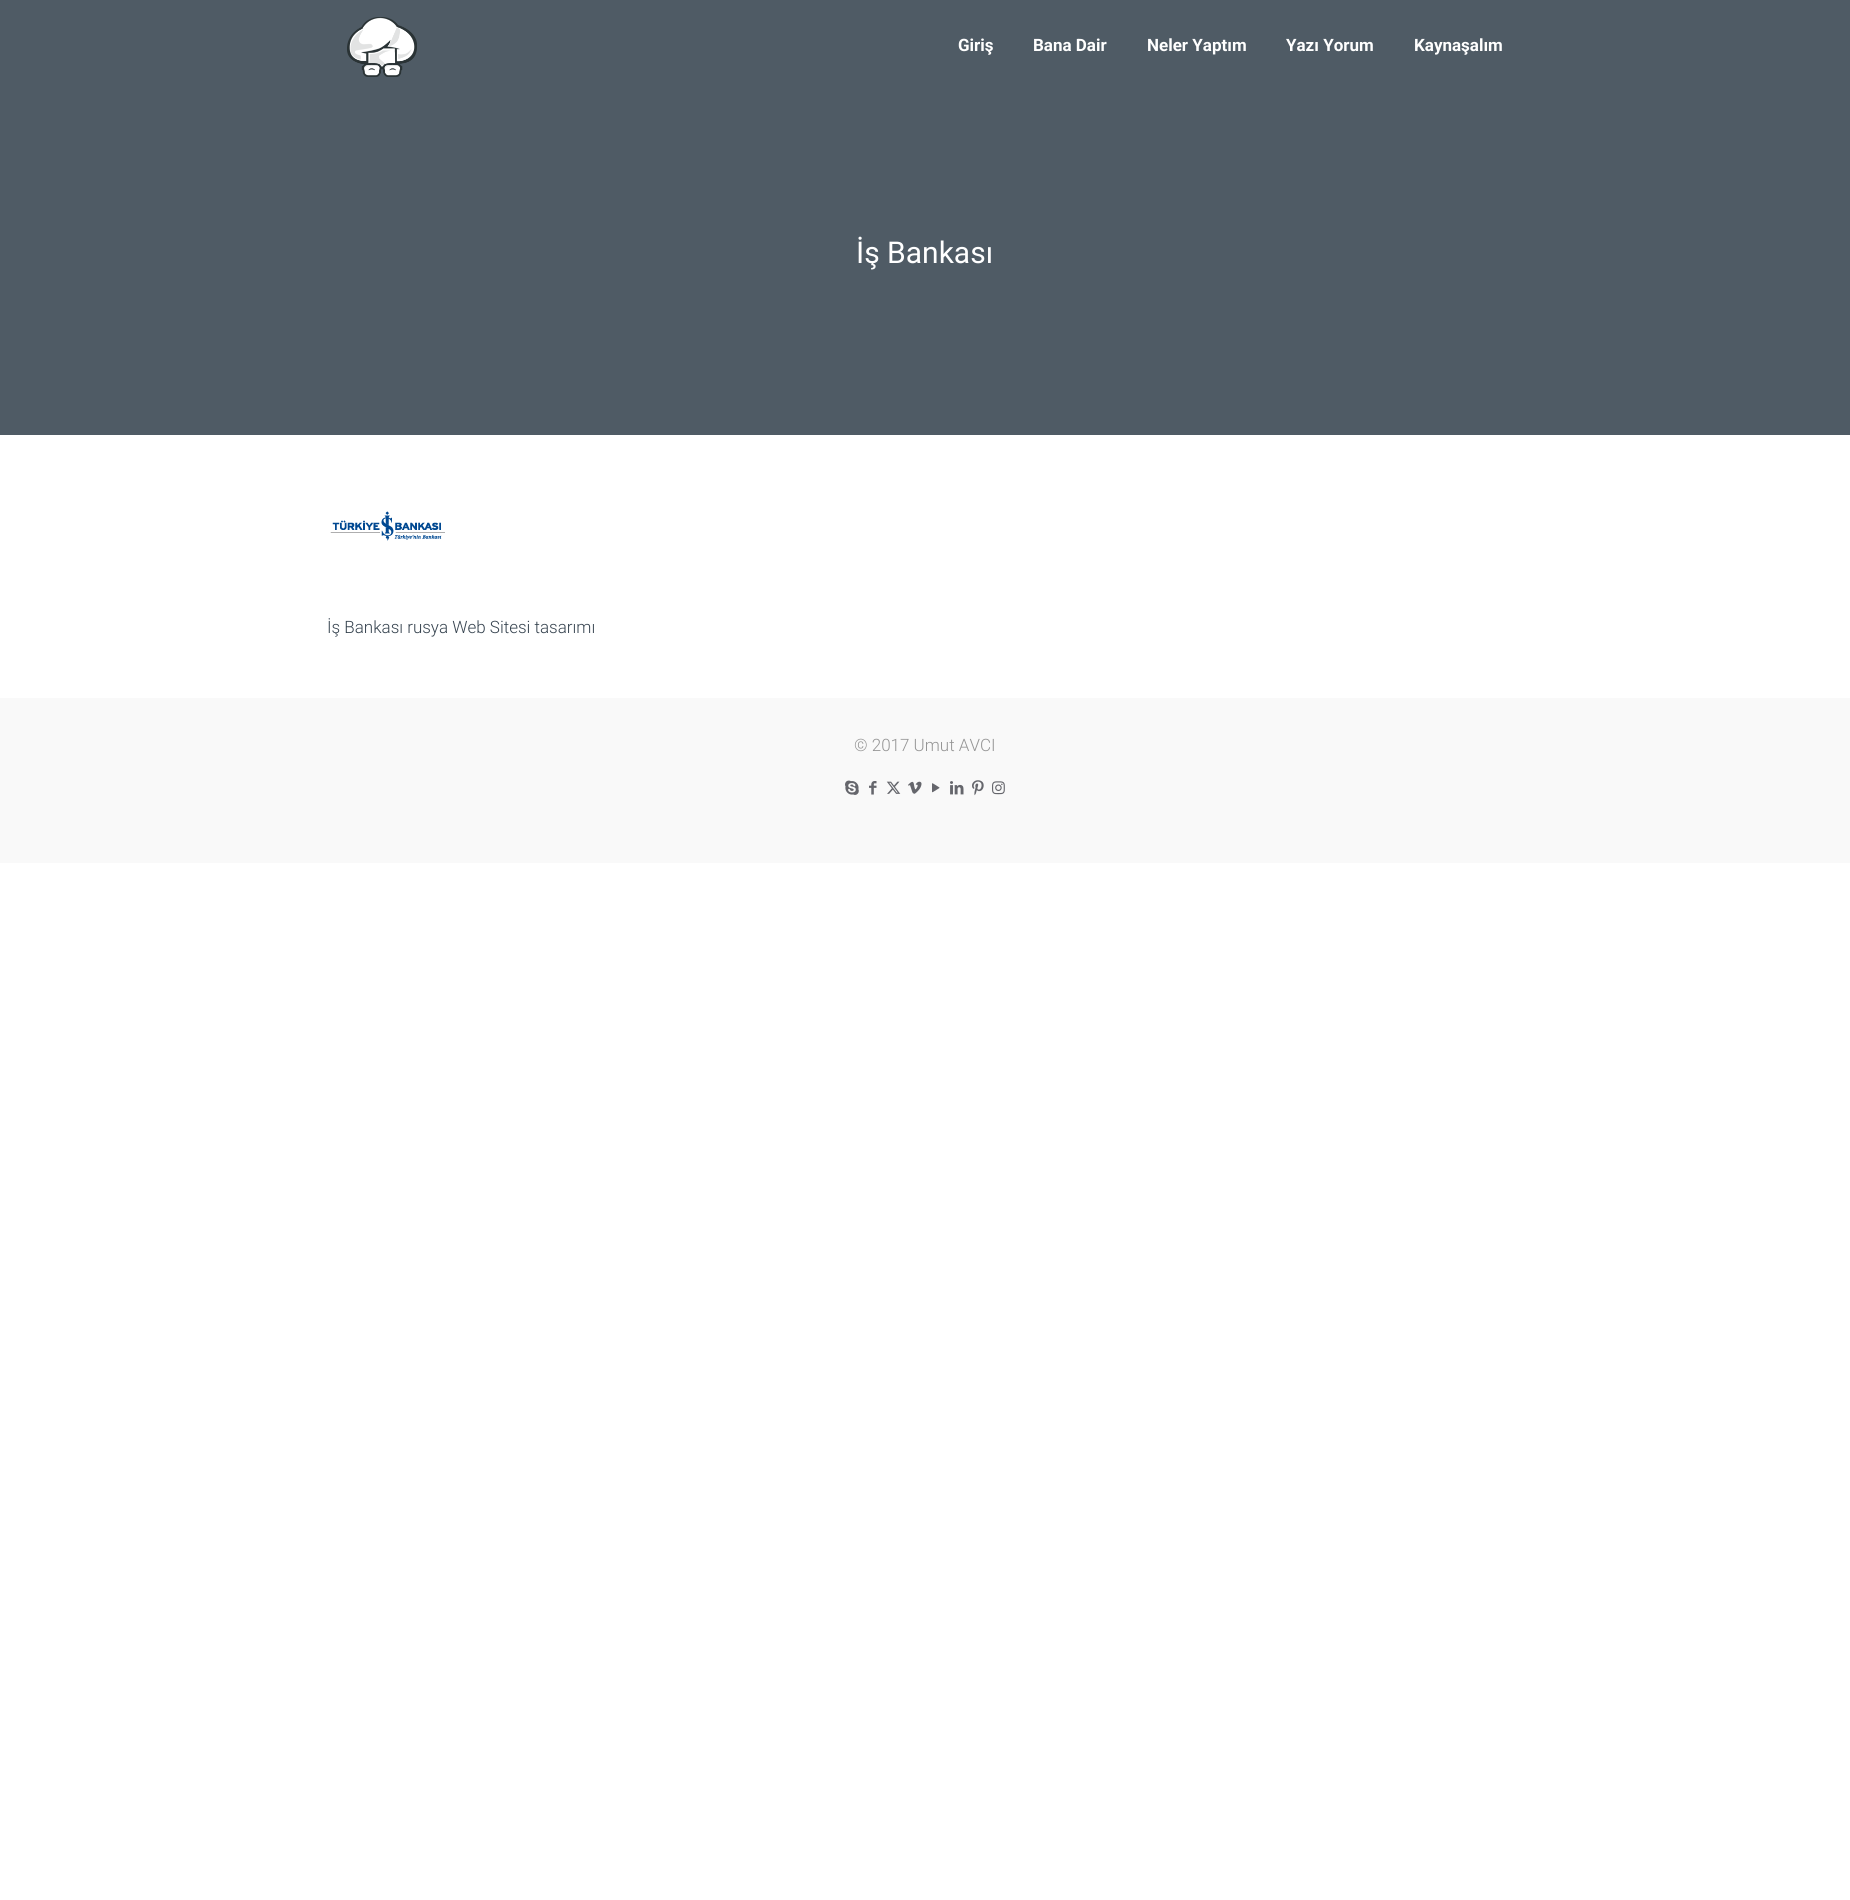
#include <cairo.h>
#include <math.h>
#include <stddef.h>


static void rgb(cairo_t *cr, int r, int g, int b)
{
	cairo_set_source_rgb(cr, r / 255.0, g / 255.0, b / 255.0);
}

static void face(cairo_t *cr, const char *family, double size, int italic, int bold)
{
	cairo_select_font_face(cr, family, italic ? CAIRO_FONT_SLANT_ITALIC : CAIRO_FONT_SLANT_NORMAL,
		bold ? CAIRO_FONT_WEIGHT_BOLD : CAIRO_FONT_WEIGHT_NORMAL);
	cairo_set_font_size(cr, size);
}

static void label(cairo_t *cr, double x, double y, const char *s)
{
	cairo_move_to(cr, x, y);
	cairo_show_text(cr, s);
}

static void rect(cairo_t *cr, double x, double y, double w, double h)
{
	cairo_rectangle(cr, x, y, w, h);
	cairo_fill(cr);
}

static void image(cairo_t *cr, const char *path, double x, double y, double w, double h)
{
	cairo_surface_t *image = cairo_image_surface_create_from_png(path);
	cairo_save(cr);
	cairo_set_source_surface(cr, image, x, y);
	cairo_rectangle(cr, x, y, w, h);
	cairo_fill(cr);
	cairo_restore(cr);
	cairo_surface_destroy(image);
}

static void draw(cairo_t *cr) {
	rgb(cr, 255, 255, 255);
	cairo_paint(cr);
	rgb(cr, 79, 91, 101);
	rect(cr, 0, 0, 1850, 435);
	image(cr, "image0.png", 347, 17, 70, 60);
	face(cr, "Roboto", 17, 0, 1);
	rgb(cr, 255, 255, 255);
	label(cr, 958, 51, "Giriş");
	label(cr, 1033, 51, "Bana Dair");
	label(cr, 1147, 51, "Neler Yaptım");
	label(cr, 1286, 51, "Yazı Yorum");
	label(cr, 1414, 51, "Kaynaşalım");
	face(cr, "Roboto", 30, 0, 0);
	label(cr, 856, 263, "İş Bankası");
	image(cr, "image1.png", 330, 511, 115, 30);
	face(cr, "Roboto Light", 17, 0, 0);
	rgb(cr, 54, 67, 79);
	label(cr, 327, 633, "İş Bankası rusya Web Sitesi tasarımı");
	rgb(cr, 249, 249, 249);
	rect(cr, 0, 698, 1850, 165);
	rgb(cr, 149, 149, 149);
	label(cr, 854, 751, "© 2017 Umut AVCI");
	image(cr, "image2.png", 845, 780, 14, 15);
	image(cr, "image3.png", 869, 781, 8, 14);
	image(cr, "image4.png", 886, 781, 15, 13);
	image(cr, "image5.png", 908, 781, 14, 13);
	image(cr, "image6.png", 932, 783, 8, 10);
	image(cr, "image7.png", 950, 781, 14, 14);
	image(cr, "image8.png", 972, 780, 12, 16);
	image(cr, "image9.png", 992, 781, 13, 14);
}

int main(void) {
	cairo_surface_t *surface = cairo_image_surface_create(CAIRO_FORMAT_RGB24, 1850, 1900);
	cairo_t *cr = cairo_create(surface);
	cairo_font_options_t *options = cairo_font_options_create();
	cairo_font_options_set_hint_metrics(options, CAIRO_HINT_METRICS_OFF);
	cairo_font_options_set_hint_style(options, CAIRO_HINT_STYLE_NONE);
	cairo_set_font_options(cr, options);
	cairo_set_miter_limit(cr, 4);
	draw(cr);
	cairo_surface_write_to_png(surface, "render.png");
	cairo_font_options_destroy(options);
	cairo_destroy(cr);
	cairo_surface_destroy(surface);
	return 0;
}
